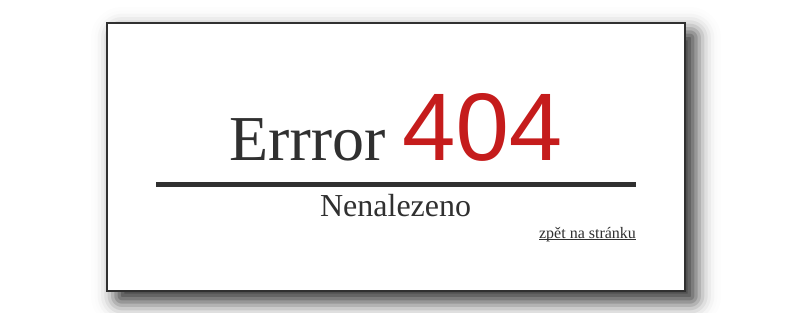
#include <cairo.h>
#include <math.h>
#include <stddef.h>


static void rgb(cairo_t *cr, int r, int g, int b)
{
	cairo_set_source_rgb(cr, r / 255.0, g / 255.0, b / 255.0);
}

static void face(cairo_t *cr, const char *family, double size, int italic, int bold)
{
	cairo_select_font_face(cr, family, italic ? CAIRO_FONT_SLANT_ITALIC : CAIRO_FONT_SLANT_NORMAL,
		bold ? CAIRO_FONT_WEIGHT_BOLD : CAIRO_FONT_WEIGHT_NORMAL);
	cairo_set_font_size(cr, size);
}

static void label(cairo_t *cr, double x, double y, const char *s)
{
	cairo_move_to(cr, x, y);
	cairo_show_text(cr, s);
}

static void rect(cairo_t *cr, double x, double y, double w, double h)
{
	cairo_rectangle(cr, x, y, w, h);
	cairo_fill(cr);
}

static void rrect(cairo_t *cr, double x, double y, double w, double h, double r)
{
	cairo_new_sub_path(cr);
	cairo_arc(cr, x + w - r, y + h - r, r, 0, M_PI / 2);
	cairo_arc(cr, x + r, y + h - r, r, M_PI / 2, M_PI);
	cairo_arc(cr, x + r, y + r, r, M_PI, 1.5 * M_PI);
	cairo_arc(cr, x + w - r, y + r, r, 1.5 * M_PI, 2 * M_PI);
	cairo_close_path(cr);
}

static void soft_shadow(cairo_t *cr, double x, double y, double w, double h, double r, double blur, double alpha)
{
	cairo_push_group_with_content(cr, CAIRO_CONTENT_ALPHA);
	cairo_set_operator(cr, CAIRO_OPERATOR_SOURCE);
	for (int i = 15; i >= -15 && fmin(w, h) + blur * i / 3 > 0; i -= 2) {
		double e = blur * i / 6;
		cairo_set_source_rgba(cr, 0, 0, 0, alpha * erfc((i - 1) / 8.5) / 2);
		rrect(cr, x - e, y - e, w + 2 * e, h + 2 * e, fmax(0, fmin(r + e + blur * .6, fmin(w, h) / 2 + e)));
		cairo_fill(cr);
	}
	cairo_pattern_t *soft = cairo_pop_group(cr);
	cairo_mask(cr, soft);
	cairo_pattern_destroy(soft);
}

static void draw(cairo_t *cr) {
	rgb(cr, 255, 255, 255);
	cairo_paint(cr);
	cairo_save(cr);
	cairo_set_fill_rule(cr, CAIRO_FILL_RULE_EVEN_ODD);
	cairo_new_path(cr);
	cairo_move_to(cr, 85, 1);
	cairo_line_to(cr, 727, 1);
	cairo_line_to(cr, 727, 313);
	cairo_line_to(cr, 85, 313);
	cairo_close_path(cr);
	cairo_move_to(cr, 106, 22);
	cairo_line_to(cr, 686, 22);
	cairo_line_to(cr, 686, 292);
	cairo_line_to(cr, 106, 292);
	cairo_close_path(cr);
	cairo_clip(cr);
	rgb(cr, 48, 48, 48);
	soft_shadow(cr, 116, 32, 580, 270, 0, 10, 1);
	cairo_restore(cr);
	cairo_rectangle(cr, 107, 23, 578, 268);
	rgb(cr, 48, 48, 48);
	cairo_stroke(cr);
	rect(cr, 156, 182, 480, 5);
	face(cr, "Liberation Serif", 64, 0, 0);
	label(cr, 229, 160, "Errror");
	face(cr, "Liberation Sans", 96, 0, 0);
	rgb(cr, 197, 28, 28);
	label(cr, 402, 160, "404");
	face(cr, "Liberation Serif", 32, 0, 0);
	rgb(cr, 48, 48, 48);
	label(cr, 320, 216, "Nenalezeno");
	rect(cr, 539, 239, 97, 1);
	face(cr, "Liberation Serif", 16, 0, 0);
	label(cr, 539, 238, "zpět na stránku");
}

int main(void) {
	cairo_surface_t *surface = cairo_image_surface_create(CAIRO_FORMAT_RGB24, 791, 313);
	cairo_t *cr = cairo_create(surface);
	cairo_font_options_t *options = cairo_font_options_create();
	cairo_font_options_set_hint_metrics(options, CAIRO_HINT_METRICS_OFF);
	cairo_font_options_set_hint_style(options, CAIRO_HINT_STYLE_NONE);
	cairo_set_font_options(cr, options);
	cairo_set_miter_limit(cr, 4);
	draw(cr);
	cairo_surface_write_to_png(surface, "render.png");
	cairo_font_options_destroy(options);
	cairo_destroy(cr);
	cairo_surface_destroy(surface);
	return 0;
}
